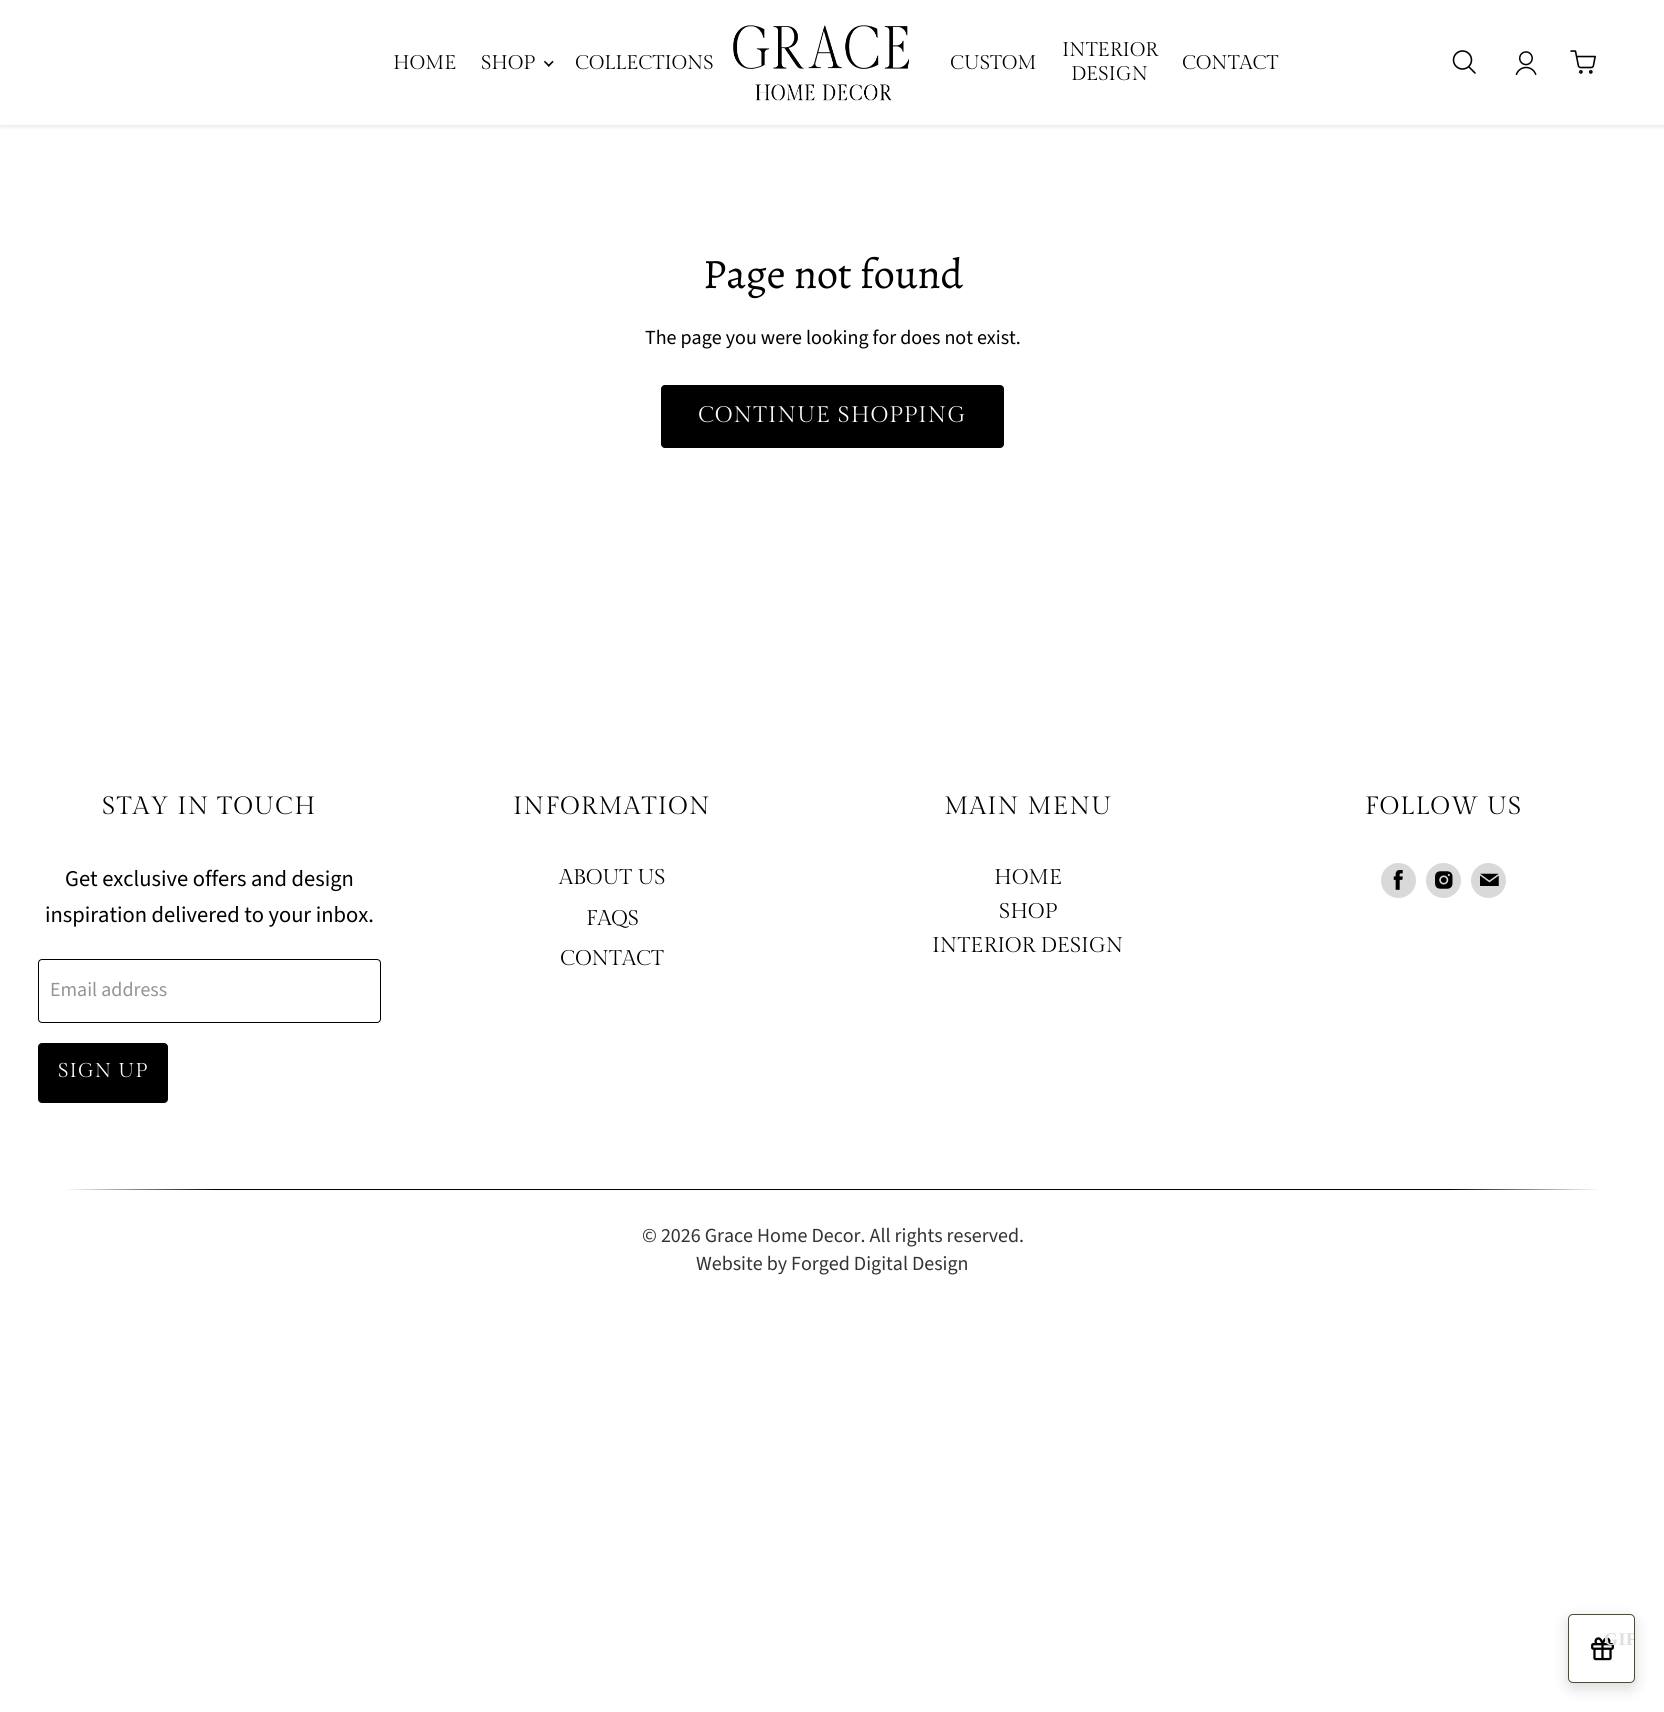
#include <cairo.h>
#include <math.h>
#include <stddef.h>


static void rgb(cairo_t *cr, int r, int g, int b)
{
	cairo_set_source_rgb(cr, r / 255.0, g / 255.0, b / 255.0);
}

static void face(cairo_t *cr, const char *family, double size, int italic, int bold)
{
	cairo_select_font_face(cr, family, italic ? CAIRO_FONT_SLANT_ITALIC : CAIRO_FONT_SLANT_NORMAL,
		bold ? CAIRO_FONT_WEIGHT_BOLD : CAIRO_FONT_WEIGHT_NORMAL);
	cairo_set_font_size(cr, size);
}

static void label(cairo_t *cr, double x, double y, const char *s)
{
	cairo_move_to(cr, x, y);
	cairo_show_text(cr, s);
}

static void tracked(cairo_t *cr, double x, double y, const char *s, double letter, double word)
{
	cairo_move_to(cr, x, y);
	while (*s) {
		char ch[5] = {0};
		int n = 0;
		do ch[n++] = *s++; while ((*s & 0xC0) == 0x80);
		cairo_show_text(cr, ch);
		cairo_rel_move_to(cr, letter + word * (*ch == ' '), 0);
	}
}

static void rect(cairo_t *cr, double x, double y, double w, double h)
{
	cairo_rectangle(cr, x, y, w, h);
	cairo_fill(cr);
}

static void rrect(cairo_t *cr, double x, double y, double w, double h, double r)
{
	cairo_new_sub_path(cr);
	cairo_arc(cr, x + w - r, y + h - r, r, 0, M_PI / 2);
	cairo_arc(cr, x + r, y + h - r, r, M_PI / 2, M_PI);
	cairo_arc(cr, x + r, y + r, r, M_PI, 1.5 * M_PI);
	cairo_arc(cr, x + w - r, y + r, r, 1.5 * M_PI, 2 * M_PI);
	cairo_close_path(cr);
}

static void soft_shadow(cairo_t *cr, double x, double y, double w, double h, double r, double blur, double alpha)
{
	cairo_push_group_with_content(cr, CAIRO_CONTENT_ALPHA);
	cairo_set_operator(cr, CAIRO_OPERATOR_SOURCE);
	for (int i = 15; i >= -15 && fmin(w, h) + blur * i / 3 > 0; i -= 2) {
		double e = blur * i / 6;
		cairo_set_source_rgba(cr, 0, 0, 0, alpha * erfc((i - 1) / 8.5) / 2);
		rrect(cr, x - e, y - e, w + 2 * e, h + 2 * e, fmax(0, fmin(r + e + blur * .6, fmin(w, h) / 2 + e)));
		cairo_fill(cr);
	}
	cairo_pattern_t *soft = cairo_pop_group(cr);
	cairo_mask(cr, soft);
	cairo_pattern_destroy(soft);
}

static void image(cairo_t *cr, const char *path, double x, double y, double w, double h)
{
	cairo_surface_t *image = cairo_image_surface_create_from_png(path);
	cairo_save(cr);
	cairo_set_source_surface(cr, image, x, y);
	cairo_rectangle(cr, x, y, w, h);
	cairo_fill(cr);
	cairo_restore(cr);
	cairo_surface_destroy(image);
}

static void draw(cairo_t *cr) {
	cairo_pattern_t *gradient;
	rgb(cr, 255, 255, 255);
	cairo_paint(cr);
	cairo_save(cr);
	cairo_rectangle(cr, 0, 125, 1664, 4);
	cairo_clip(cr);
	rgb(cr, 128, 128, 128);
	soft_shadow(cr, 0, 1, 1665, 125, 0, 2.5, 0.25);
	cairo_restore(cr);
	face(cr, "Gilda Display", 19.75, 0, 0);
	rgb(cr, 0, 0, 0);
	label(cr, 393, 69, "HOME");
	label(cr, 481, 69, "SHOP");
	image(cr, "image0.png", 544, 60, 10, 7);
	label(cr, 575, 69, "COLLECTIONS");
	image(cr, "image1.png", 733, 25, 176, 76);
	label(cr, 950, 69, "CUSTOM");
	label(cr, 1062, 56, "INTERIOR");
	label(cr, 1071, 80, "DESIGN");
	label(cr, 1182, 69, "CONTACT");
	cairo_new_path(cr);
	cairo_move_to(cr, 1475, 73);
	cairo_line_to(cr, 1469, 67);
	cairo_set_line_width(cr, 1.6);
	cairo_set_line_cap(cr, CAIRO_LINE_CAP_ROUND);
	cairo_set_line_join(cr, CAIRO_LINE_JOIN_ROUND);
	cairo_stroke(cr);
	cairo_arc(cr, 1462.5, 60, 9, 0, 2 * M_PI);
	cairo_set_line_cap(cr, CAIRO_LINE_CAP_BUTT);
	cairo_set_line_join(cr, CAIRO_LINE_JOIN_MITER);
	cairo_stroke(cr);
	image(cr, "image2.png", 1515, 51, 22, 25);
	image(cr, "image3.png", 1570, 50, 26, 24);
	face(cr, "Alegreya", 42, 0, 0);
	label(cr, 703, 288, "Page not found");
	face(cr, "Source Sans Pro", 20, 0, 0);
	label(cr, 645, 344, "The page you were looking for does not exist.");
	rrect(cr, 661.5, 385.5, 342, 62, 3.5);
	cairo_fill_preserve(cr);
	cairo_set_line_width(cr, 1);
	cairo_stroke(cr);
	face(cr, "Gilda Display", 22.5, 0, 0);
	rgb(cr, 255, 255, 255);
	tracked(cr, 698, 422, "CONTINUE SHOPPING", 1.1, 0);
	face(cr, "Gilda Display", 25, 0, 0);
	rgb(cr, 0, 0, 0);
	tracked(cr, 102, 814, "STAY IN TOUCH", 1.25, 0);
	face(cr, "Source Sans Pro", 22.5, 0, 0);
	label(cr, 65, 886, "Get exclusive offers and design");
	label(cr, 45, 922, "inspiration delivered to your inbox.");
	rrect(cr, 38.5, 959.5, 342, 63, 3.5);
	cairo_stroke(cr);
	face(cr, "Source Sans Pro", 20, 0, 0);
	rgb(cr, 148, 148, 148);
	label(cr, 50, 996, "Email address");
	rgb(cr, 0, 0, 0);
	rrect(cr, 38.5, 1043.5, 129, 59, 3.5);
	cairo_fill_preserve(cr);
	cairo_stroke(cr);
	face(cr, "Gilda Display", 20, 0, 0);
	rgb(cr, 255, 255, 255);
	tracked(cr, 58, 1077, "SIGN UP", 1, 0);
	face(cr, "Gilda Display", 25, 0, 0);
	rgb(cr, 0, 0, 0);
	tracked(cr, 513, 814, "INFORMATION", 1.25, 0);
	face(cr, "Gilda Display", 21.25, 0, 0);
	label(cr, 559, 884, "ABOUT US");
	label(cr, 586, 925, "FAQS");
	label(cr, 560, 965, "CONTACT");
	face(cr, "Gilda Display", 25, 0, 0);
	tracked(cr, 944, 814, "MAIN MENU", 1.25, 0);
	face(cr, "Gilda Display", 21.25, 0, 0);
	label(cr, 994, 884, "HOME");
	label(cr, 999, 918, "SHOP");
	label(cr, 932, 952, "INTERIOR DESIGN");
	face(cr, "Gilda Display", 25, 0, 0);
	tracked(cr, 1365, 814, "FOLLOW US", 1.25, 0);
	rgb(cr, 217, 217, 217);
	cairo_new_path(cr);
	cairo_arc(cr, 1398.5, 880.5, 17.5, 0, 2 * M_PI);
	cairo_fill(cr);
	image(cr, "image4.png", 1393, 870, 10, 20);
	cairo_arc(cr, 1443.5, 880.5, 17.5, 0, 2 * M_PI);
	cairo_fill(cr);
	image(cr, "image5.png", 1435, 871, 18, 18);
	cairo_arc(cr, 1488.5, 880.5, 17.5, 0, 2 * M_PI);
	cairo_fill(cr);
	image(cr, "image6.png", 1480, 873, 19, 13);
	gradient = cairo_pattern_create_linear(64, 1189, 1601, 1189);
	cairo_pattern_add_color_stop_rgba(gradient, 0, 1, 1, 1, 1);
	cairo_pattern_add_color_stop_rgba(gradient, 0.1, 0, 0, 0, 1);
	cairo_pattern_add_color_stop_rgba(gradient, 0.9, 0, 0, 0, 1);
	cairo_pattern_add_color_stop_rgba(gradient, 1, 1, 1, 1, 1);
	cairo_set_source(cr, gradient);
	cairo_pattern_destroy(gradient);
	rect(cr, 64, 1189, 1537, 1);
	face(cr, "Source Sans Pro", 20, 0, 0);
	rgb(cr, 51, 51, 51);
	label(cr, 642, 1242, "© 2026 Grace Home Decor. All rights reserved.");
	label(cr, 696, 1270, "Website by Forged Digital Design");
	rgb(cr, 0, 0, 0);
	soft_shadow(cr, 1568, 1619, 67, 69, 5, 7.5, 0.15);
	rgb(cr, 255, 255, 255);
	rrect(cr, 1568.5, 1614.5, 66, 68, 4.5);
	cairo_fill_preserve(cr);
	rgb(cr, 73, 77, 65);
	cairo_stroke(cr);
	image(cr, "image7.png", 1591, 1637, 23, 24);
	cairo_save(cr);
	rrect(cr, 1569, 1615, 65, 66, 4);
	cairo_clip(cr);
	face(cr, "Liberation Serif", 18, 0, 1);
	rgb(cr, 222, 222, 222);
	tracked(cr, 1604, 1645, "GIF", 0.5, 0);
	cairo_restore(cr);
}

int main(void) {
	cairo_surface_t *surface = cairo_image_surface_create(CAIRO_FORMAT_RGB24, 1664, 1712);
	cairo_t *cr = cairo_create(surface);
	cairo_font_options_t *options = cairo_font_options_create();
	cairo_font_options_set_hint_metrics(options, CAIRO_HINT_METRICS_OFF);
	cairo_font_options_set_hint_style(options, CAIRO_HINT_STYLE_NONE);
	cairo_set_font_options(cr, options);
	cairo_set_miter_limit(cr, 4);
	draw(cr);
	cairo_surface_write_to_png(surface, "render.png");
	cairo_font_options_destroy(options);
	cairo_destroy(cr);
	cairo_surface_destroy(surface);
	return 0;
}
